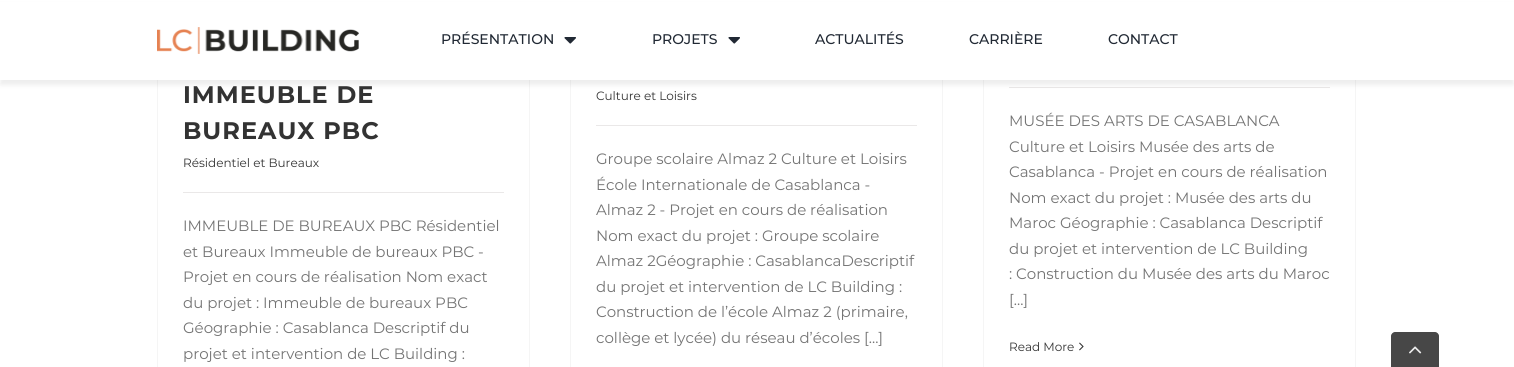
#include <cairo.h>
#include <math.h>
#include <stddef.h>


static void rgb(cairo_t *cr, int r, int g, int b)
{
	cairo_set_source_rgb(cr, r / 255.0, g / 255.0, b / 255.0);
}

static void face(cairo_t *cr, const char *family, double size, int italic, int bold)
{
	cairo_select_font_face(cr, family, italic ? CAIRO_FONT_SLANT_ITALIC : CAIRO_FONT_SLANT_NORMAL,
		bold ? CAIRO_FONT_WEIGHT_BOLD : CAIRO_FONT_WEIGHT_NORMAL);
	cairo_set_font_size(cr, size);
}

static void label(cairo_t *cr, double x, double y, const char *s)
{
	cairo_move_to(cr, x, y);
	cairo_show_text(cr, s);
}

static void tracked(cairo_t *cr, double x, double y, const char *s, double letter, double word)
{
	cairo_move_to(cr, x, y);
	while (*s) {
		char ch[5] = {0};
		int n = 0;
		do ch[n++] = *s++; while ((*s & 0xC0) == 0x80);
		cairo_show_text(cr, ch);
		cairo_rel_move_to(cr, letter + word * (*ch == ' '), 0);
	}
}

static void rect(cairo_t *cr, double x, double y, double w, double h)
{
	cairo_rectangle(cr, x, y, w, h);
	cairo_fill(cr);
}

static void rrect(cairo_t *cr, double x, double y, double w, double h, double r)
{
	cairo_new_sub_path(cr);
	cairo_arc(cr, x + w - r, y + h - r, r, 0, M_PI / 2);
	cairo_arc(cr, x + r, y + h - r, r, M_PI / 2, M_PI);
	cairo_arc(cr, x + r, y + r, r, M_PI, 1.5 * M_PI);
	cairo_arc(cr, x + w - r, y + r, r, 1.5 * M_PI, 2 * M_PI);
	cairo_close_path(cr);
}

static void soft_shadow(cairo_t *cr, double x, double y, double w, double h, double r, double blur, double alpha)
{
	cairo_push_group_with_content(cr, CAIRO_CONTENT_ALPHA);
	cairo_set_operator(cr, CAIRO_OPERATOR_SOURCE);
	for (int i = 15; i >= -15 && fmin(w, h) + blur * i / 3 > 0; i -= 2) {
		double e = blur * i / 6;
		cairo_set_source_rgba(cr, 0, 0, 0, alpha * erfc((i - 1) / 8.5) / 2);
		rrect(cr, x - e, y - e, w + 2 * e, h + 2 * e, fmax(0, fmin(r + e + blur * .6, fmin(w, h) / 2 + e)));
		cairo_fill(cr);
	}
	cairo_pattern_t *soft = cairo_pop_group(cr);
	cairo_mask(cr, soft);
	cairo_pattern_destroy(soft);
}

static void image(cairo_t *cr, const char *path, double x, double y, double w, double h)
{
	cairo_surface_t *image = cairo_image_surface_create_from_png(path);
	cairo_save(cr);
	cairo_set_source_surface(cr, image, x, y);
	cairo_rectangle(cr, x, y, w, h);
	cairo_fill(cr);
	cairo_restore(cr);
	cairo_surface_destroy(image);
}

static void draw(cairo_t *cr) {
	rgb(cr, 255, 255, 255);
	cairo_paint(cr);
	rgb(cr, 245, 245, 245);
	rect(cr, 529, 80, 1, 287);
	rect(cr, 157, 80, 1, 287);
	rect(cr, 942, 80, 1, 287);
	rect(cr, 570, 80, 1, 287);
	rect(cr, 1355, 80, 1, 287);
	rect(cr, 983, 80, 1, 287);
	rgb(cr, 234, 232, 232);
	rect(cr, 1009, 87, 321, 1);
	rgb(cr, 0, 0, 0);
	soft_shadow(cr, 0, 5, 1514, 80, 0, 2.5, 0.07);
	rgb(cr, 255, 255, 255);
	rect(cr, 0, 2, 1514, 78);
	image(cr, "image0.png", 157, 27, 202, 27);
	face(cr, "Montserrat Medium", 14, 0, 0);
	rgb(cr, 33, 41, 52);
	label(cr, 441, 44, "PRÉSENTATION");
	image(cr, "image1.png", 564, 37, 12, 7);
	label(cr, 652, 44, "PROJETS");
	image(cr, "image1.png", 728, 37, 12, 7);
	label(cr, 815, 44, "ACTUALITÉS");
	label(cr, 969, 44, "CARRIÈRE");
	label(cr, 1108, 44, "CONTACT");
	face(cr, "Montserrat", 24, 0, 1);
	rgb(cr, 51, 51, 51);
	tracked(cr, 183, 103, "IMMEUBLE DE", 1, 0);
	tracked(cr, 183, 139, "BUREAUX PBC", 1, 0);
	face(cr, "Montserrat", 12, 0, 0);
	label(cr, 183, 167, "Résidentiel et Bureaux");
	rgb(cr, 234, 232, 232);
	rect(cr, 183, 192, 321, 1);
	face(cr, "Montserrat", 15, 0, 0);
	rgb(cr, 116, 116, 116);
	label(cr, 183, 231, "IMMEUBLE DE BUREAUX PBC Résidentiel");
	label(cr, 183, 257, "et Bureaux Immeuble de bureaux PBC -");
	label(cr, 183, 282, "Projet en cours de réalisation Nom exact");
	label(cr, 183, 308, "du projet : Immeuble de bureaux PBC");
	label(cr, 183, 333, "Géographie : Casablanca Descriptif du");
	label(cr, 183, 359, "projet et intervention de LC Building :");
	face(cr, "Montserrat", 12, 0, 0);
	rgb(cr, 51, 51, 51);
	label(cr, 596, 100, "Culture et Loisirs");
	rgb(cr, 234, 232, 232);
	rect(cr, 596, 125, 321, 1);
	face(cr, "Montserrat", 15, 0, 0);
	rgb(cr, 116, 116, 116);
	label(cr, 596, 164, "Groupe scolaire Almaz 2 Culture et Loisirs");
	label(cr, 596, 190, "École Internationale de Casablanca -");
	label(cr, 596, 215, "Almaz 2 - Projet en cours de réalisation");
	label(cr, 596, 241, "Nom exact du projet : Groupe scolaire");
	label(cr, 596, 266, "Almaz 2Géographie : CasablancaDescriptif");
	label(cr, 596, 292, "du projet et intervention de LC Building :");
	label(cr, 596, 317, "Construction de l’école Almaz 2 (primaire,");
	label(cr, 596, 343, "collège et lycée) du réseau d’écoles [...]");
	label(cr, 1009, 126, "MUSÉE DES ARTS DE CASABLANCA");
	label(cr, 1009, 152, "Culture et Loisirs Musée des arts de");
	label(cr, 1009, 177, "Casablanca - Projet en cours de réalisation");
	label(cr, 1009, 203, "Nom exact du projet : Musée des arts du");
	label(cr, 1009, 228, "Maroc Géographie : Casablanca Descriptif");
	label(cr, 1009, 254, "du projet et intervention de LC Building");
	label(cr, 1009, 279, ": Construction du Musée des arts du Maroc");
	label(cr, 1009, 305, "[...]");
	face(cr, "Montserrat", 12, 0, 0);
	rgb(cr, 51, 51, 51);
	label(cr, 1009, 351, "Read More");
	image(cr, "image2.png", 1079, 342, 5, 9);
	rgb(cr, 71, 71, 71);
	cairo_new_path(cr);
	cairo_move_to(cr, 1395, 332);
	cairo_line_to(cr, 1435, 332);
	cairo_curve_to(cr, 1437, 332, 1439, 334, 1439, 336);
	cairo_line_to(cr, 1439, 367);
	cairo_line_to(cr, 1391, 367);
	cairo_line_to(cr, 1391, 336);
	cairo_curve_to(cr, 1391, 334, 1393, 332, 1395, 332);
	cairo_close_path(cr);
	cairo_fill(cr);
	image(cr, "image3.png", 1409, 346, 13, 8);
}

int main(void) {
	cairo_surface_t *surface = cairo_image_surface_create(CAIRO_FORMAT_RGB24, 1514, 367);
	cairo_t *cr = cairo_create(surface);
	cairo_font_options_t *options = cairo_font_options_create();
	cairo_font_options_set_hint_metrics(options, CAIRO_HINT_METRICS_OFF);
	cairo_font_options_set_hint_style(options, CAIRO_HINT_STYLE_NONE);
	cairo_set_font_options(cr, options);
	cairo_set_miter_limit(cr, 4);
	draw(cr);
	cairo_surface_write_to_png(surface, "render.png");
	cairo_font_options_destroy(options);
	cairo_destroy(cr);
	cairo_surface_destroy(surface);
	return 0;
}
